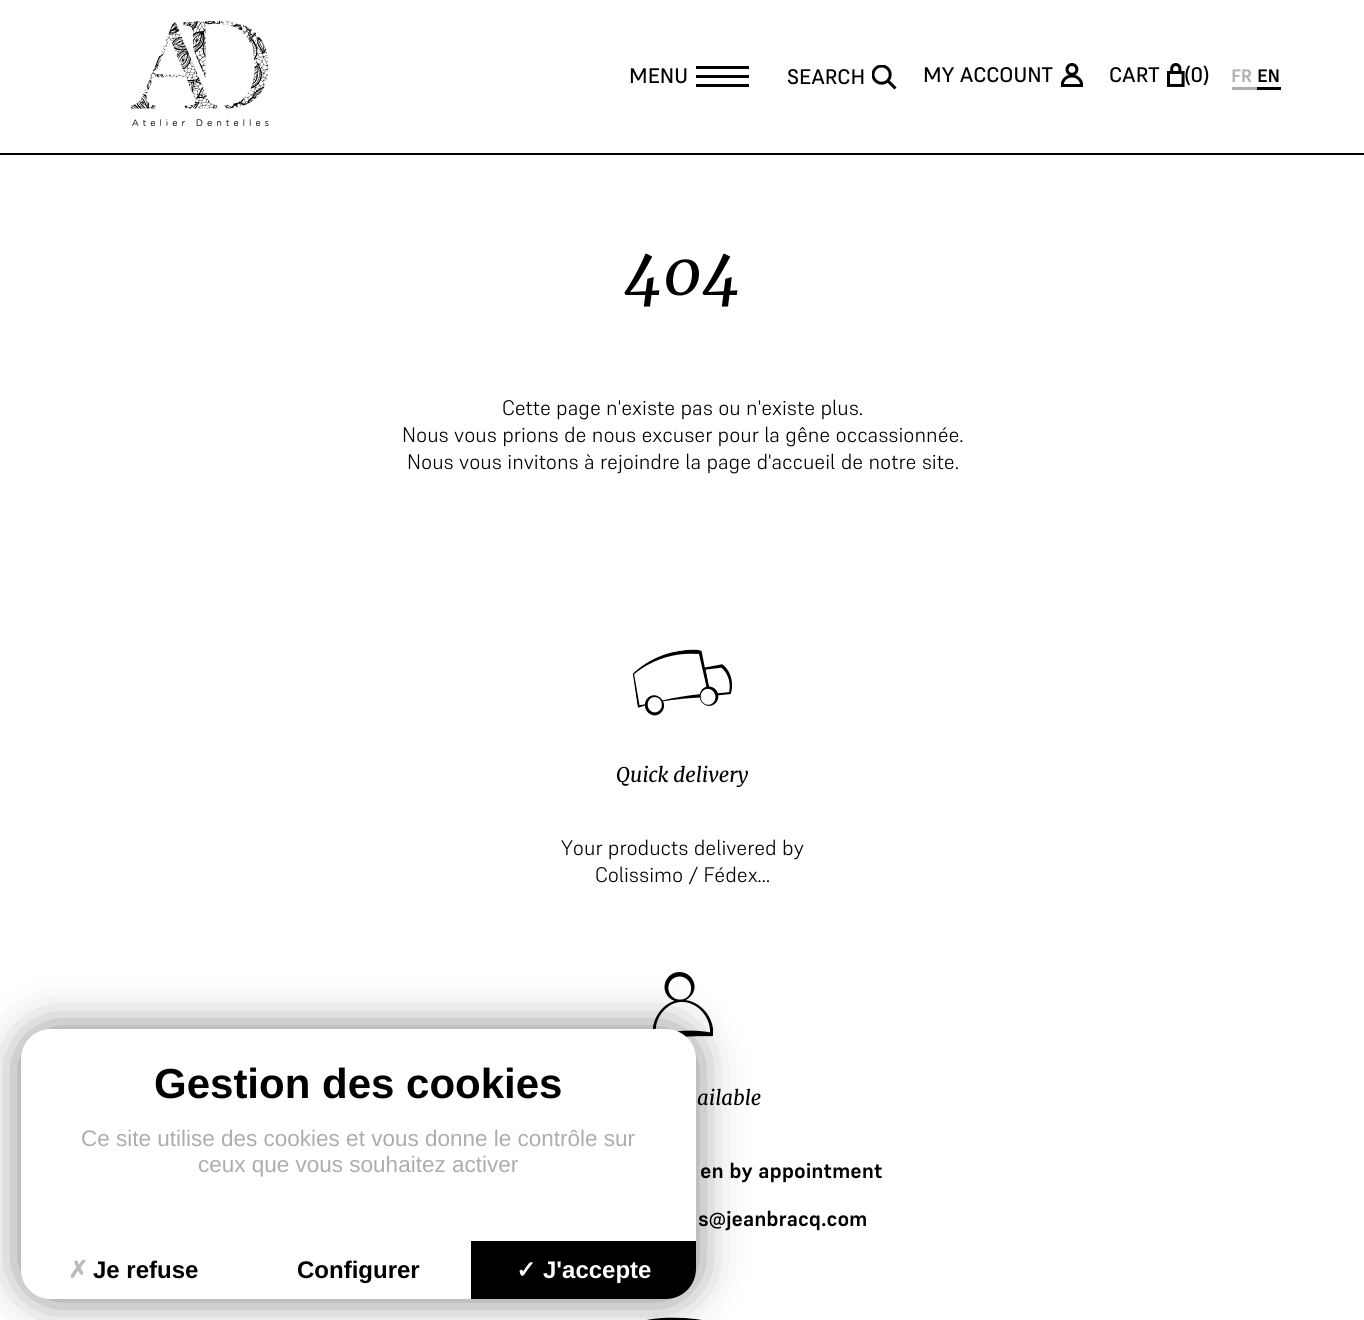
#include <cairo.h>
#include <math.h>
#include <stddef.h>


static void rgb(cairo_t *cr, int r, int g, int b)
{
	cairo_set_source_rgb(cr, r / 255.0, g / 255.0, b / 255.0);
}

static void face(cairo_t *cr, const char *family, double size, int italic, int bold)
{
	cairo_select_font_face(cr, family, italic ? CAIRO_FONT_SLANT_ITALIC : CAIRO_FONT_SLANT_NORMAL,
		bold ? CAIRO_FONT_WEIGHT_BOLD : CAIRO_FONT_WEIGHT_NORMAL);
	cairo_set_font_size(cr, size);
}

static void label(cairo_t *cr, double x, double y, const char *s)
{
	cairo_move_to(cr, x, y);
	cairo_show_text(cr, s);
}

static void rect(cairo_t *cr, double x, double y, double w, double h)
{
	cairo_rectangle(cr, x, y, w, h);
	cairo_fill(cr);
}

static void rrect(cairo_t *cr, double x, double y, double w, double h, double r)
{
	cairo_new_sub_path(cr);
	cairo_arc(cr, x + w - r, y + h - r, r, 0, M_PI / 2);
	cairo_arc(cr, x + r, y + h - r, r, M_PI / 2, M_PI);
	cairo_arc(cr, x + r, y + r, r, M_PI, 1.5 * M_PI);
	cairo_arc(cr, x + w - r, y + r, r, 1.5 * M_PI, 2 * M_PI);
	cairo_close_path(cr);
}

static void soft_shadow(cairo_t *cr, double x, double y, double w, double h, double r, double blur, double alpha)
{
	cairo_push_group_with_content(cr, CAIRO_CONTENT_ALPHA);
	cairo_set_operator(cr, CAIRO_OPERATOR_SOURCE);
	for (int i = 15; i >= -15 && fmin(w, h) + blur * i / 3 > 0; i -= 2) {
		double e = blur * i / 6;
		cairo_set_source_rgba(cr, 0, 0, 0, alpha * erfc((i - 1) / 8.5) / 2);
		rrect(cr, x - e, y - e, w + 2 * e, h + 2 * e, fmax(0, fmin(r + e + blur * .6, fmin(w, h) / 2 + e)));
		cairo_fill(cr);
	}
	cairo_pattern_t *soft = cairo_pop_group(cr);
	cairo_mask(cr, soft);
	cairo_pattern_destroy(soft);
}

static void image(cairo_t *cr, const char *path, double x, double y, double w, double h)
{
	cairo_surface_t *image = cairo_image_surface_create_from_png(path);
	cairo_save(cr);
	cairo_set_source_surface(cr, image, x, y);
	cairo_rectangle(cr, x, y, w, h);
	cairo_fill(cr);
	cairo_restore(cr);
	cairo_surface_destroy(image);
}

static void draw(cairo_t *cr) {
	rgb(cr, 255, 255, 255);
	cairo_paint(cr);
	image(cr, "image5.png", 653, 972, 60, 65);
	image(cr, "image6.png", 647, 1317, 55, 3);
	rgb(cr, 0, 0, 0);
	soft_shadow(cr, 21, 1029, 675, 270, 30, 22.5, 0.5);
	rgb(cr, 255, 255, 255);
	rrect(cr, 21, 1029, 675, 270, 30);
	cairo_fill(cr);
	face(cr, "Liberation Sans", 42, 0, 1);
	rgb(cr, 0, 0, 0);
	label(cr, 154, 1098, "Gestion des cookies");
	face(cr, "Liberation Sans", 22.5, 0, 0);
	rgb(cr, 173, 173, 173);
	label(cr, 81, 1146, "Ce site utilise des cookies et vous donne le contrôle sur");
	label(cr, 198, 1172, "ceux que vous souhaitez activer");
	rgb(cr, 255, 255, 255);
	cairo_new_path(cr);
	cairo_move_to(cr, 21, 1241);
	cairo_line_to(cr, 246, 1241);
	cairo_line_to(cr, 246, 1299);
	cairo_line_to(cr, 51, 1299);
	cairo_curve_to(cr, 34.5, 1299, 21, 1285.5, 21, 1269);
	cairo_close_path(cr);
	cairo_fill(cr);
	face(cr, "DejaVu Sans", 24, 0, 1);
	rgb(cr, 187, 187, 187);
	label(cr, 68, 1278, "✗");
	face(cr, "Liberation Sans", 24, 0, 1);
	rgb(cr, 0, 0, 0);
	label(cr, 93, 1278, "Je refuse");
	label(cr, 297, 1278, "Configurer");
	cairo_new_path(cr);
	cairo_move_to(cr, 471, 1241);
	cairo_line_to(cr, 696, 1241);
	cairo_line_to(cr, 696, 1269);
	cairo_curve_to(cr, 696, 1285.5, 682.5, 1299, 666, 1299);
	cairo_line_to(cr, 471, 1299);
	cairo_close_path(cr);
	cairo_fill(cr);
	face(cr, "DejaVu Sans", 24, 0, 1);
	rgb(cr, 255, 255, 255);
	label(cr, 516, 1278, "✓");
	face(cr, "Liberation Sans", 24, 0, 1);
	label(cr, 543, 1278, "J'accepte");
	rgb(cr, 0, 0, 0);
	rect(cr, 0, 153, 1364, 2);
	image(cr, "image0.png", 130, 21, 139, 105);
	face(cr, "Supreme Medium", 21, 0, 0);
	label(cr, 629, 83, "MENU");
	rect(cr, 696, 66, 53, 3);
	rect(cr, 696, 75, 53, 3);
	rect(cr, 696, 84, 53, 3);
	label(cr, 787, 84, "SEARCH");
	image(cr, "image1.png", 872, 65, 25, 25);
	label(cr, 923, 82, "MY ACCOUNT");
	image(cr, "image2.png", 1061, 63, 22, 24);
	label(cr, 1109, 82, "CART");
	image(cr, "image3.png", 1167, 63, 18, 24);
	label(cr, 1184, 82, "(0)");
	face(cr, "Supreme", 18, 0, 1);
	rgb(cr, 173, 173, 173);
	label(cr, 1231, 82, "FR");
	rect(cr, 1232, 87, 25, 3);
	rgb(cr, 0, 0, 0);
	label(cr, 1257, 82, "EN");
	rect(cr, 1257, 87, 24, 3);
	face(cr, "Merriweather", 63, 1, 0);
	label(cr, 624, 295, "404");
	face(cr, "Supreme Light", 21, 0, 0);
	label(cr, 502, 415, "Cette page n'existe pas ou n'existe plus.");
	label(cr, 402, 442, "Nous vous prions de nous excuser pour la gêne occassionnée.");
	label(cr, 407, 469, "Nous vous invitons à rejoindre la page d'accueil de notre site.");
	image(cr, "image4.png", 632, 649, 101, 67);
	face(cr, "Merriweather", 20.25, 1, 0);
	label(cr, 616, 782, "Quick delivery");
	face(cr, "Supreme Light", 21, 0, 0);
	label(cr, 561, 855, "Your products delivered by");
	label(cr, 595, 882, "Colissimo / Fédex…");
	face(cr, "Merriweather", 20.25, 1, 0);
	label(cr, 697, 1105, "ailable");
	face(cr, "Supreme", 21, 0, 1);
	label(cr, 700, 1178, "en by appointment");
	label(cr, 698, 1226, "s@jeanbracq.com");
}

int main(void) {
	cairo_surface_t *surface = cairo_image_surface_create(CAIRO_FORMAT_RGB24, 1364, 1320);
	cairo_t *cr = cairo_create(surface);
	cairo_font_options_t *options = cairo_font_options_create();
	cairo_font_options_set_hint_metrics(options, CAIRO_HINT_METRICS_OFF);
	cairo_font_options_set_hint_style(options, CAIRO_HINT_STYLE_NONE);
	cairo_set_font_options(cr, options);
	cairo_set_miter_limit(cr, 4);
	draw(cr);
	cairo_surface_write_to_png(surface, "render.png");
	cairo_font_options_destroy(options);
	cairo_destroy(cr);
	cairo_surface_destroy(surface);
	return 0;
}
